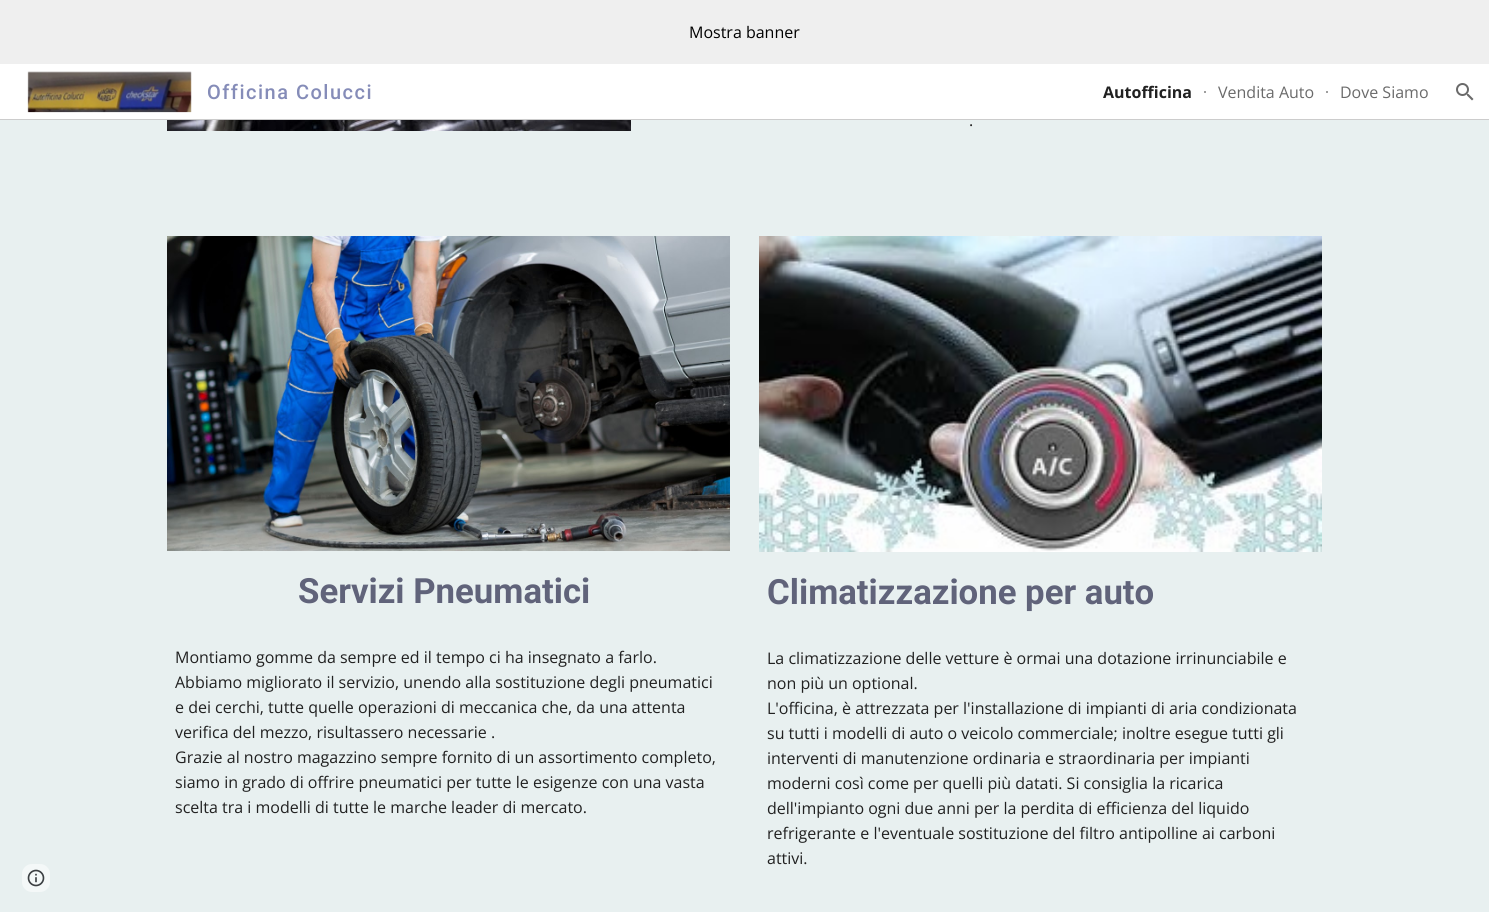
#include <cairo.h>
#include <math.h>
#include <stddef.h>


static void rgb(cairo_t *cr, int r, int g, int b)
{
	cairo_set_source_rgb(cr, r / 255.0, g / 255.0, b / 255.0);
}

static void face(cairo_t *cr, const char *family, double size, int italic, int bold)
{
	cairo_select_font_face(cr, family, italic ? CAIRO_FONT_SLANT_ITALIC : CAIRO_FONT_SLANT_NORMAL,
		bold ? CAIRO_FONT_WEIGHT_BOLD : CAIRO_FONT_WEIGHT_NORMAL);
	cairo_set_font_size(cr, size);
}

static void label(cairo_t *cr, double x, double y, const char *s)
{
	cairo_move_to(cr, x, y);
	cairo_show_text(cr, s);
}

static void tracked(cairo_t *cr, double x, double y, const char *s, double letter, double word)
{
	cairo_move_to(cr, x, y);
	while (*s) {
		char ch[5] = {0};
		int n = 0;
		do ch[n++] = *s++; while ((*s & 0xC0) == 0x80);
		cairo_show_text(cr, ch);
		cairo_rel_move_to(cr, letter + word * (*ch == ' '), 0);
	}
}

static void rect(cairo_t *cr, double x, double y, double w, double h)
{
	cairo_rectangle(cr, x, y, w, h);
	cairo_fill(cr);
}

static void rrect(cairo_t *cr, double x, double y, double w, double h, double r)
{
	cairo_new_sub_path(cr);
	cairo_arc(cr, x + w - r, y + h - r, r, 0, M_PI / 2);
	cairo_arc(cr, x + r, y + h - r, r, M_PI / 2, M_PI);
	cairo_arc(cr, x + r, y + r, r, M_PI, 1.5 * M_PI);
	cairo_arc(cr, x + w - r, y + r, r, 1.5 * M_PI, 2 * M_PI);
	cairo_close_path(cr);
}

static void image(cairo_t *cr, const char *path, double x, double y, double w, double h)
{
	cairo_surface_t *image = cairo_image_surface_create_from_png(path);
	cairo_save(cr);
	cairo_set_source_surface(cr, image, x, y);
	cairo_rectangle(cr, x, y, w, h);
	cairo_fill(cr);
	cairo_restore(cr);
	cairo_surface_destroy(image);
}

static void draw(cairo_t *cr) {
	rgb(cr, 232, 240, 240);
	cairo_paint(cr);
	rgb(cr, 239, 239, 239);
	rect(cr, 0, 0, 1489, 64);
	face(cr, "Open Sans", 16, 0, 0);
	rgb(cr, 0, 0, 0);
	label(cr, 689, 38, "Mostra banner");
	rgb(cr, 255, 255, 255);
	rect(cr, 0, 64, 1489, 55);
	rgb(cr, 204, 204, 204);
	rect(cr, 0, 119, 1489, 1);
	image(cr, "image0.png", 27, 71, 165, 42);
	face(cr, "Roboto Medium", 20, 0, 0);
	rgb(cr, 133, 140, 184);
	tracked(cr, 207, 99, "Officina Colucci", 1.5, 0);
	face(cr, "Open Sans", 16, 0, 1);
	rgb(cr, 33, 33, 33);
	label(cr, 1103, 98, "Autofficina");
	rgb(cr, 158, 158, 158);
	rect(cr, 1204, 91, 2, 2);
	face(cr, "Open Sans", 16, 0, 0);
	rgb(cr, 106, 106, 106);
	label(cr, 1218, 98, "Vendita Auto");
	rgb(cr, 158, 158, 158);
	rect(cr, 1326, 91, 2, 2);
	rgb(cr, 106, 106, 106);
	label(cr, 1340, 98, "Dove Siamo");
	image(cr, "image1.png", 1456, 83, 18, 18);
	image(cr, "image2.png", 167, 120, 464, 11);
	rgb(cr, 33, 33, 33);
	label(cr, 969, 126, ".");
	image(cr, "image3.png", 167, 236, 563, 315);
	face(cr, "Roboto", 34.75, 0, 1);
	rgb(cr, 96, 99, 122);
	label(cr, 298, 603, "Servizi Pneumatici");
	face(cr, "Open Sans", 16, 0, 0);
	rgb(cr, 33, 33, 33);
	label(cr, 175, 663, "Montiamo gomme da sempre ed il tempo ci ha insegnato a farlo.");
	label(cr, 175, 688, "Abbiamo migliorato il servizio, unendo alla sostituzione degli pneumatici");
	label(cr, 175, 713, "e dei cerchi, tutte quelle operazioni di meccanica che, da una attenta");
	label(cr, 175, 738, "verifica del mezzo, risultassero necessarie .");
	label(cr, 175, 763, "Grazie al nostro magazzino sempre fornito di un assortimento completo,");
	label(cr, 175, 788, "siamo in grado di offrire pneumatici per tutte le esigenze con una vasta");
	label(cr, 175, 813, "scelta tra i modelli di tutte le marche leader di mercato.");
	image(cr, "image4.png", 759, 236, 563, 316);
	face(cr, "Roboto", 34.75, 0, 1);
	rgb(cr, 96, 99, 122);
	label(cr, 767, 604, "Climatizzazione per auto");
	face(cr, "Open Sans", 16, 0, 0);
	rgb(cr, 33, 33, 33);
	label(cr, 767, 664, "La climatizzazione delle vetture è ormai una dotazione irrinunciabile e");
	label(cr, 767, 689, "non più un optional.");
	label(cr, 767, 714, "L'officina, è attrezzata per l'installazione di impianti di aria condizionata");
	label(cr, 767, 739, "su tutti i modelli di auto o veicolo commerciale; inoltre esegue tutti gli");
	label(cr, 767, 764, "interventi di manutenzione ordinaria e straordinaria per impianti");
	label(cr, 767, 789, "moderni così come per quelli più datati. Si consiglia la ricarica");
	label(cr, 767, 814, "dell'impianto ogni due anni per la perdita di efficienza del liquido");
	label(cr, 767, 839, "refrigerante e l'eventuale sostituzione del filtro antipolline ai carboni");
	label(cr, 767, 864, "attivi.");
	rgb(cr, 244, 248, 248);
	rrect(cr, 22, 864, 28, 28, 10);
	cairo_fill(cr);
	image(cr, "image5.png", 27, 869, 18, 18);
}

int main(void) {
	cairo_surface_t *surface = cairo_image_surface_create(CAIRO_FORMAT_RGB24, 1489, 912);
	cairo_t *cr = cairo_create(surface);
	cairo_font_options_t *options = cairo_font_options_create();
	cairo_font_options_set_hint_metrics(options, CAIRO_HINT_METRICS_OFF);
	cairo_font_options_set_hint_style(options, CAIRO_HINT_STYLE_NONE);
	cairo_set_font_options(cr, options);
	cairo_set_miter_limit(cr, 4);
	draw(cr);
	cairo_surface_write_to_png(surface, "render.png");
	cairo_font_options_destroy(options);
	cairo_destroy(cr);
	cairo_surface_destroy(surface);
	return 0;
}
